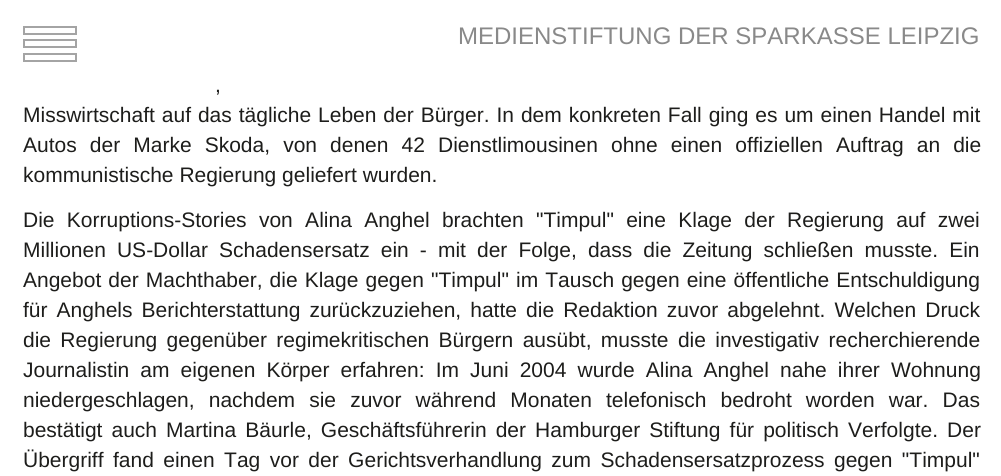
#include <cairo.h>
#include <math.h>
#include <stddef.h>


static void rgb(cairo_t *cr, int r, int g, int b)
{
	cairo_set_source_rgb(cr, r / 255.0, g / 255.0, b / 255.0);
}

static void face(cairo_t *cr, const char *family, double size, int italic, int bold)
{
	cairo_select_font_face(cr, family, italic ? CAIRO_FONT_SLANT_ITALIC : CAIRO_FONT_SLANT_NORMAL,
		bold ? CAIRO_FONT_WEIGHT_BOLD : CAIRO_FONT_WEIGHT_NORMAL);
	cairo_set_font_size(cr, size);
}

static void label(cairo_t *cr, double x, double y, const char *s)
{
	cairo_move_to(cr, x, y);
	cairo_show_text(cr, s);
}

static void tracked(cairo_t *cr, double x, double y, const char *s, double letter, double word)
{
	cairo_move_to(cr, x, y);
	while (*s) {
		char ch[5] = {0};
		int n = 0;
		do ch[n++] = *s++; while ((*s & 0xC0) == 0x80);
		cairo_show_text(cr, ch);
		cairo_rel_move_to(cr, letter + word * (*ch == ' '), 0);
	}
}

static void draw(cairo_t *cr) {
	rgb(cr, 255, 255, 255);
	cairo_paint(cr);
	cairo_rectangle(cr, 24, 27, 52, 7);
	rgb(cr, 164, 164, 164);
	cairo_stroke(cr);
	cairo_rectangle(cr, 24, 40, 52, 7);
	cairo_stroke(cr);
	cairo_rectangle(cr, 24, 54, 52, 7);
	cairo_stroke(cr);
	face(cr, "Liberation Sans", 24, 0, 0);
	rgb(cr, 137, 137, 137);
	label(cr, 458, 44, "MEDIENSTIFTUNG DER SPARKASSE LEIPZIG");
	face(cr, "Liberation Sans", 21, 0, 0);
	rgb(cr, 29, 29, 27);
	tracked(cr, 215, 92, ",", 0, 6);
	tracked(cr, 23, 122, "Misswirtschaft auf das tägliche Leben der Bürger. In dem konkreten Fall ging es um einen Handel mit", 0, 1.1);
	tracked(cr, 23, 152, "Autos der Marke Skoda, von denen 42 Dienstlimousinen ohne einen offiziellen Auftrag an die", 0, 7.25);
	label(cr, 23, 182, "kommunistische Regierung geliefert wurden.");
	tracked(cr, 23, 227, "Die Korruptions-Stories von Alina Anghel brachten \"Timpul\" eine Klage der Regierung auf zwei", 0, 6.5);
	tracked(cr, 23, 257, "Millionen US-Dollar Schadensersatz ein - mit der Folge, dass die Zeitung schließen musste. Ein", 0, 5.25);
	tracked(cr, 23, 287, "Angebot der Machthaber, die Klage gegen \"Timpul\" im Tausch gegen eine öffentliche Entschuldigung", 0, 1.25);
	tracked(cr, 23, 317, "für Anghels Berichterstattung zurückzuziehen, hatte die Redaktion zuvor abgelehnt. Welchen Druck", 0, 3.25);
	tracked(cr, 23, 347, "die Regierung gegenüber regimekritischen Bürgern ausübt, musste die investigativ recherchierende", 0, 3.5);
	tracked(cr, 23, 377, "Journalistin am eigenen Körper erfahren: Im Juni 2004 wurde Alina Anghel nahe ihrer Wohnung", 0, 5.25);
	tracked(cr, 23, 407, "niedergeschlagen, nachdem sie zuvor während Monaten telefonisch bedroht worden war. Das", 0, 8.25);
	tracked(cr, 23, 437, "bestätigt auch Martina Bäurle, Geschäftsführerin der Hamburger Stiftung für politisch Verfolgte. Der", 0, 3.25);
	tracked(cr, 23, 467, "Übergriff fand einen Tag vor der Gerichtsverhandlung zum Schadensersatzprozess gegen \"Timpul\"", 0, 3.6);
}

int main(void) {
	cairo_surface_t *surface = cairo_image_surface_create(CAIRO_FORMAT_RGB24, 1001, 476);
	cairo_t *cr = cairo_create(surface);
	cairo_font_options_t *options = cairo_font_options_create();
	cairo_font_options_set_hint_metrics(options, CAIRO_HINT_METRICS_OFF);
	cairo_font_options_set_hint_style(options, CAIRO_HINT_STYLE_NONE);
	cairo_set_font_options(cr, options);
	cairo_set_miter_limit(cr, 4);
	draw(cr);
	cairo_surface_write_to_png(surface, "render.png");
	cairo_font_options_destroy(options);
	cairo_destroy(cr);
	cairo_surface_destroy(surface);
	return 0;
}
